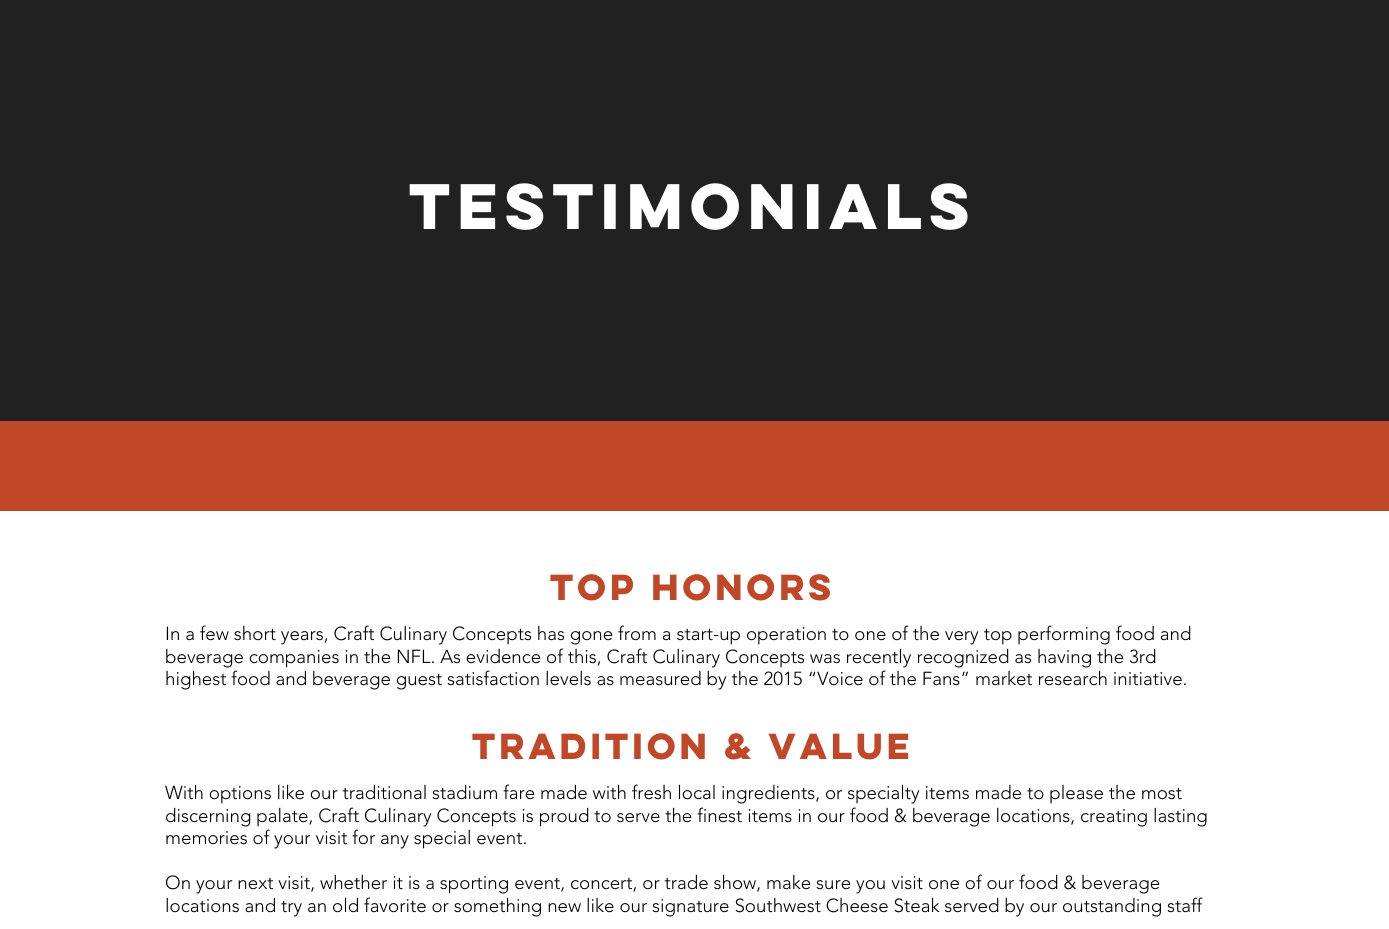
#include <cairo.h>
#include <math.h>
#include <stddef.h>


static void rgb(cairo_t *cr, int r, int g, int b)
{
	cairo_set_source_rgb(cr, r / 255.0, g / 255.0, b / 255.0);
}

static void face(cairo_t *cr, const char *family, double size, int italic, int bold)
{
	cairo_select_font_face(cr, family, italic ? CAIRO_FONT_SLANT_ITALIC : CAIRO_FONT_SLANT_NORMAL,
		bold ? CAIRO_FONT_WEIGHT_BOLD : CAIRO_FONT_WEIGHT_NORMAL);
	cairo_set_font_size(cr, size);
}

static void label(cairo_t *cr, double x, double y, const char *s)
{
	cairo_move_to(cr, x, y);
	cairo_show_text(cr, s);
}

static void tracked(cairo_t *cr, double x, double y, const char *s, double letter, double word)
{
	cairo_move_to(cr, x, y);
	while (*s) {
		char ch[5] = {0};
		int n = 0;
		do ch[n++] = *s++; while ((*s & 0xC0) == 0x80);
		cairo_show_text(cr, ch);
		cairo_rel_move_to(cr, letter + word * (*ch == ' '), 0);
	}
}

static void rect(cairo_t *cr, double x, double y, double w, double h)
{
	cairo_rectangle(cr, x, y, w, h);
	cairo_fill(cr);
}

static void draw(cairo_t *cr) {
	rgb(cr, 255, 255, 255);
	cairo_paint(cr);
	rgb(cr, 33, 33, 33);
	rect(cr, 0, 0, 1389, 421);
	face(cr, "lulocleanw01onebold", 57.5, 0, 1);
	rgb(cr, 255, 255, 255);
	tracked(cr, 409, 229, "TESTIMONIALS", -5.75, 0);
	rgb(cr, 192, 72, 40);
	rect(cr, 0, 421, 1389, 90);
	face(cr, "lulocleanw01onebold", 32.5, 0, 1);
	tracked(cr, 550, 600, "TOP HONORS", -3.25, 0);
	face(cr, "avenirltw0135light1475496 Light", 18.75, 0, 0);
	rgb(cr, 0, 0, 0);
	label(cr, 165, 640, "In a few short years, Craft Culinary Concepts has gone from a start-up operation to one of the very top performing food and");
	label(cr, 165, 663, "beverage companies in the NFL. As evidence of this, Craft Culinary Concepts was recently recognized as having the 3rd");
	label(cr, 165, 685, "highest food and beverage guest satisfaction levels as measured by the 2015 “Voice of the Fans” market research initiative.");
	face(cr, "lulocleanw01onebold", 32.5, 0, 1);
	rgb(cr, 192, 72, 40);
	tracked(cr, 472, 759, "TRADITION & VALUE", -3.25, 0);
	face(cr, "avenirltw0135light1475496 Light", 18.75, 0, 0);
	rgb(cr, 0, 0, 0);
	label(cr, 165, 799, "With options like our traditional stadium fare made with fresh local ingredients, or specialty items made to please the most");
	label(cr, 165, 822, "discerning palate, Craft Culinary Concepts is proud to serve the finest items in our food & beverage locations, creating lasting");
	label(cr, 165, 844, "memories of your visit for any special event.");
	label(cr, 165, 889, "On your next visit, whether it is a sporting event, concert, or trade show, make sure you visit one of our food & beverage");
	label(cr, 165, 912, "locations and try an old favorite or something new like our signature Southwest Cheese Steak served by our outstanding staff");
}

int main(void) {
	cairo_surface_t *surface = cairo_image_surface_create(CAIRO_FORMAT_RGB24, 1389, 929);
	cairo_t *cr = cairo_create(surface);
	cairo_font_options_t *options = cairo_font_options_create();
	cairo_font_options_set_hint_metrics(options, CAIRO_HINT_METRICS_OFF);
	cairo_font_options_set_hint_style(options, CAIRO_HINT_STYLE_NONE);
	cairo_set_font_options(cr, options);
	cairo_set_miter_limit(cr, 4);
	draw(cr);
	cairo_surface_write_to_png(surface, "render.png");
	cairo_font_options_destroy(options);
	cairo_destroy(cr);
	cairo_surface_destroy(surface);
	return 0;
}
